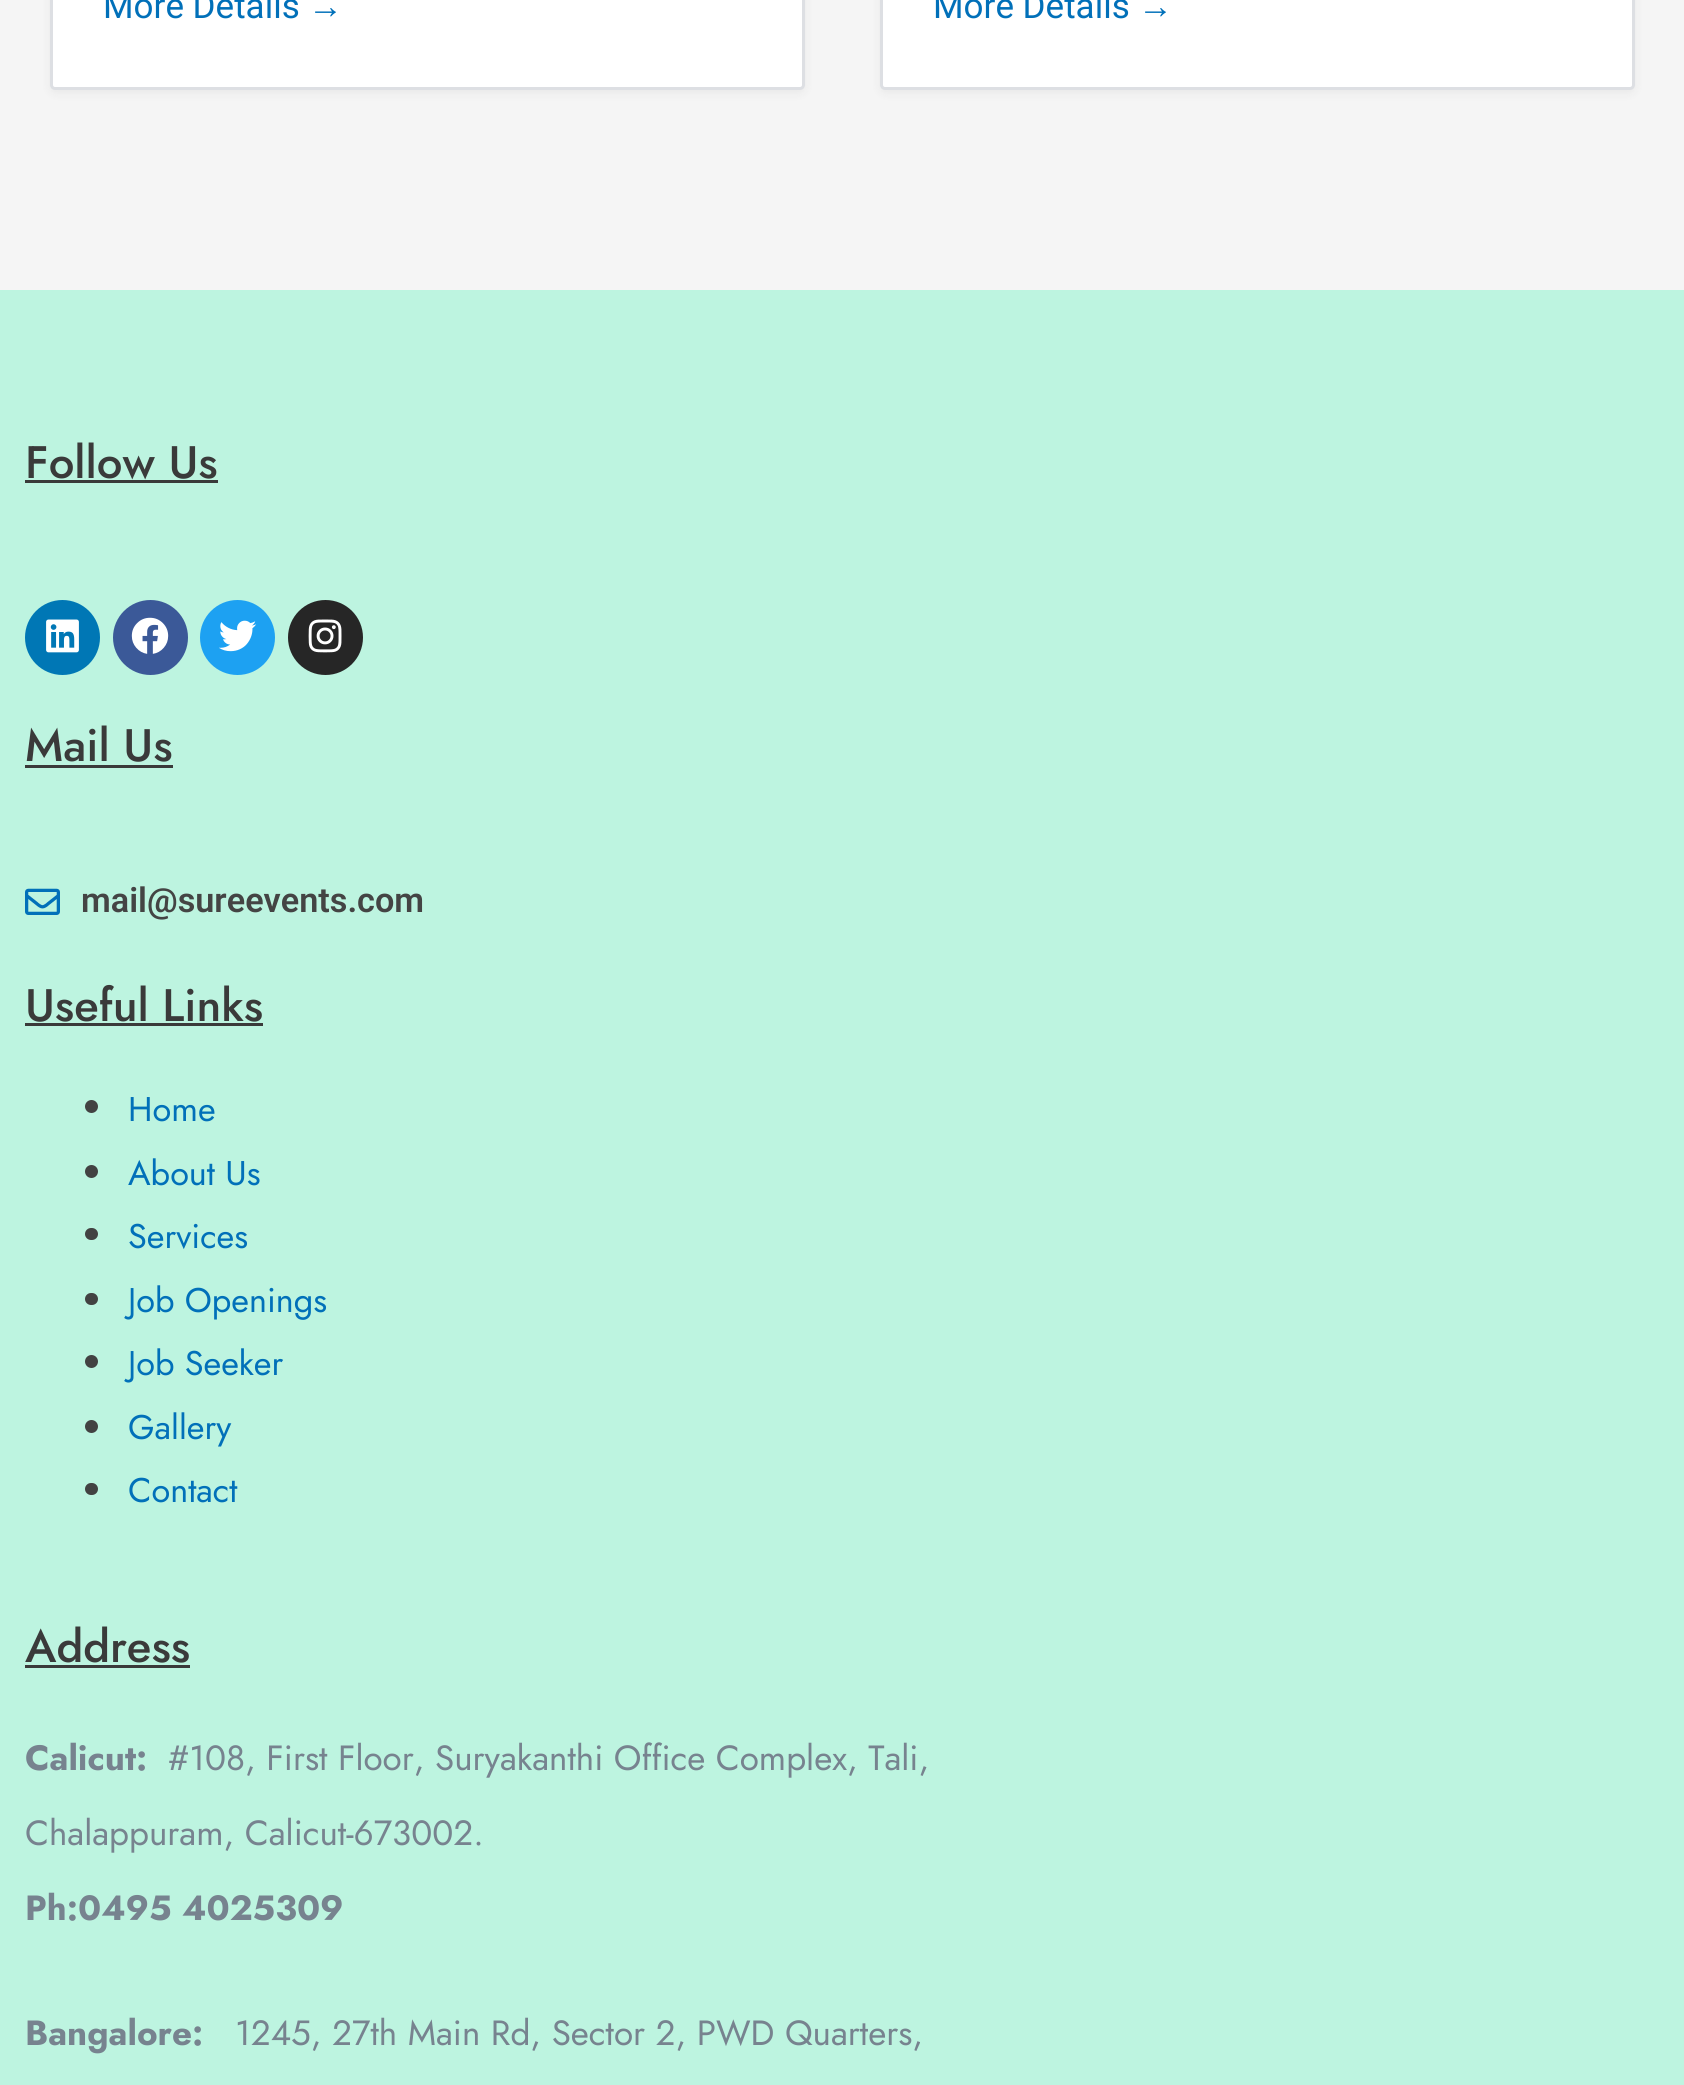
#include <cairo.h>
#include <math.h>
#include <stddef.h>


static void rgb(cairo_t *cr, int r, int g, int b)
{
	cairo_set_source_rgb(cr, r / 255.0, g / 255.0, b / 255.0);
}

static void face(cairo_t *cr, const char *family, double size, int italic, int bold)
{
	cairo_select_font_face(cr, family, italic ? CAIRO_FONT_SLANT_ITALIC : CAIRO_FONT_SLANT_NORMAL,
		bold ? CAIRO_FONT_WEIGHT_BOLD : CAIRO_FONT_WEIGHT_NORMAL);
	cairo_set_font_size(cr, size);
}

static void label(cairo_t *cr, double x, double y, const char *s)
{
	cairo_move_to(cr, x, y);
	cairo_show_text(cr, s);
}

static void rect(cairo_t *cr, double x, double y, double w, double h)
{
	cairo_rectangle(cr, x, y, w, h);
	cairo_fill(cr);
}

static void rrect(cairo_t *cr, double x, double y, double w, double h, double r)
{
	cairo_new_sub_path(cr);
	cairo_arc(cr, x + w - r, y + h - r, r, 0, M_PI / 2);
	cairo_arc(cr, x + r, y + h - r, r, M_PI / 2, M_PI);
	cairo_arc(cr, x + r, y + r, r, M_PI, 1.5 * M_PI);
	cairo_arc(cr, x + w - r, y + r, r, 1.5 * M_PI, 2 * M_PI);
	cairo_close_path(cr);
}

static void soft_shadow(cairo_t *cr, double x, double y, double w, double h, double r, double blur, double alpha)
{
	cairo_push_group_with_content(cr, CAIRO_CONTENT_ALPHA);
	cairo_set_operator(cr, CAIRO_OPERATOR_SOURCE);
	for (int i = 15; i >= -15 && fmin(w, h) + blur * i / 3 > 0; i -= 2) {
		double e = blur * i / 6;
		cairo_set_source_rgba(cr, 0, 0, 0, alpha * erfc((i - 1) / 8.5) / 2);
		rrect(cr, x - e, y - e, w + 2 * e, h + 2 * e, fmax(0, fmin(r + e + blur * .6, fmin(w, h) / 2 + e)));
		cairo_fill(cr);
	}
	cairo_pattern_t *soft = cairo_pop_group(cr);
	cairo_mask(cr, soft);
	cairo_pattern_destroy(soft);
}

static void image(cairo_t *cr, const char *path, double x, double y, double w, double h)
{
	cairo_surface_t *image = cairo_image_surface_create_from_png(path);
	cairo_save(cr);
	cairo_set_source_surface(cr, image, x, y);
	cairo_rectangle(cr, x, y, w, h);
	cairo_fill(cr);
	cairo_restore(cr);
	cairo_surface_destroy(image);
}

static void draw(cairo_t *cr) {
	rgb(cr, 245, 245, 245);
	cairo_paint(cr);
	rgb(cr, 0, 0, 0);
	soft_shadow(cr, 50, -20, 755, 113, 5, 5, 0.05);
	rgb(cr, 255, 255, 255);
	rrect(cr, 51.5, -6.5, 752, 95, 3.5);
	cairo_fill_preserve(cr);
	rgb(cr, 221, 223, 227);
	cairo_set_line_width(cr, 3);
	cairo_stroke(cr);
	face(cr, "Roboto", 35, 0, 0);
	rgb(cr, 1, 112, 185);
	label(cr, 103, 18, "More Details");
	face(cr, "Liberation Sans", 35, 0, 0);
	label(cr, 308, 18, "→");
	rgb(cr, 0, 0, 0);
	soft_shadow(cr, 880, -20, 755, 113, 5, 5, 0.05);
	rgb(cr, 255, 255, 255);
	rrect(cr, 881.5, -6.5, 752, 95, 3.5);
	cairo_fill_preserve(cr);
	rgb(cr, 221, 223, 227);
	cairo_stroke(cr);
	face(cr, "Roboto", 35, 0, 0);
	rgb(cr, 1, 112, 185);
	label(cr, 933, 18, "More Details");
	face(cr, "Liberation Sans", 35, 0, 0);
	label(cr, 1138, 18, "→");
	rgb(cr, 189, 244, 224);
	rect(cr, 0, 290, 1684, 1795);
	face(cr, "Jost Medium", 45.5, 0, 0);
	rgb(cr, 58, 58, 58);
	label(cr, 25, 478, "Follow Us");
	rect(cr, 25, 480, 193, 3);
	rgb(cr, 0, 119, 181);
	cairo_new_path(cr);
	cairo_arc(cr, 62.5, 637.5, 37.5, 0, 2 * M_PI);
	cairo_fill(cr);
	image(cr, "image0.png", 46, 619, 33, 34);
	rgb(cr, 59, 89, 152);
	cairo_arc(cr, 150.5, 637.5, 37.5, 0, 2 * M_PI);
	cairo_fill(cr);
	image(cr, "image1.png", 131, 617, 38, 37);
	rgb(cr, 29, 161, 242);
	cairo_arc(cr, 237.5, 637.5, 37.5, 0, 2 * M_PI);
	cairo_fill(cr);
	image(cr, "image2.png", 219, 620, 38, 32);
	rgb(cr, 38, 38, 38);
	cairo_arc(cr, 325.5, 637.5, 37.5, 0, 2 * M_PI);
	cairo_fill(cr);
	image(cr, "image3.png", 308, 619, 34, 34);
	rgb(cr, 58, 58, 58);
	label(cr, 25, 761, "Mail Us");
	rect(cr, 25, 765, 148, 3);
	image(cr, "image4.png", 25, 888, 35, 27);
	face(cr, "Roboto SemiBold", 34.25, 0, 0);
	rgb(cr, 68, 68, 68);
	label(cr, 81, 912, "mail@sureevents.com");
	face(cr, "Jost Medium", 45.5, 0, 0);
	rgb(cr, 58, 58, 58);
	label(cr, 25, 1021, "Useful Links");
	rect(cr, 25, 1023, 238, 3);
	rgb(cr, 66, 66, 66);
	cairo_new_path(cr);
	cairo_arc(cr, 91.5, 1106.5, 6.5, 0, 2 * M_PI);
	cairo_fill(cr);
	face(cr, "Jost", 34.25, 0, 0);
	rgb(cr, 1, 112, 185);
	label(cr, 128, 1121, "Home");
	rgb(cr, 66, 66, 66);
	cairo_new_path(cr);
	cairo_arc(cr, 91.5, 1171.5, 6.5, 0, 2 * M_PI);
	cairo_fill(cr);
	rgb(cr, 1, 112, 185);
	label(cr, 128, 1185, "About Us");
	rgb(cr, 66, 66, 66);
	rrect(cr, 85, 1228, 13, 12, 6);
	cairo_fill(cr);
	rgb(cr, 1, 112, 185);
	label(cr, 128, 1248, "Services");
	rgb(cr, 66, 66, 66);
	rrect(cr, 85, 1293, 13, 12, 6);
	cairo_fill(cr);
	rgb(cr, 1, 112, 185);
	label(cr, 128, 1312, "Job Openings");
	rgb(cr, 66, 66, 66);
	cairo_new_path(cr);
	cairo_arc(cr, 91.5, 1361.5, 6.5, 0, 2 * M_PI);
	cairo_fill(cr);
	rgb(cr, 1, 112, 185);
	label(cr, 128, 1375, "Job Seeker");
	rgb(cr, 66, 66, 66);
	cairo_new_path(cr);
	cairo_arc(cr, 91.5, 1426.5, 6.5, 0, 2 * M_PI);
	cairo_fill(cr);
	rgb(cr, 1, 112, 185);
	label(cr, 128, 1439, "Gallery");
	rgb(cr, 66, 66, 66);
	rrect(cr, 85, 1483, 13, 12, 6);
	cairo_fill(cr);
	rgb(cr, 1, 112, 185);
	label(cr, 128, 1502, "Contact");
	face(cr, "Jost Medium", 45.5, 0, 0);
	rgb(cr, 58, 58, 58);
	label(cr, 25, 1662, "Address");
	rect(cr, 25, 1665, 165, 3);
	face(cr, "Jost", 35, 0, 1);
	rgb(cr, 119, 131, 143);
	label(cr, 25, 1770, "Calicut:");
	face(cr, "Jost", 35, 0, 0);
	label(cr, 168, 1770, "#108, First Floor, Suryakanthi Office Complex, Tali,");
	label(cr, 25, 1845, "Chalappuram, Calicut-673002.");
	face(cr, "Jost", 35, 0, 1);
	label(cr, 25, 1920, "Ph:0495 4025309");
	label(cr, 25, 2045, "Bangalore:");
	face(cr, "Jost", 35, 0, 0);
	label(cr, 235, 2045, "1245, 27th Main Rd, Sector 2, PWD Quarters,");
}

int main(void) {
	cairo_surface_t *surface = cairo_image_surface_create(CAIRO_FORMAT_RGB24, 1684, 2085);
	cairo_t *cr = cairo_create(surface);
	cairo_font_options_t *options = cairo_font_options_create();
	cairo_font_options_set_hint_metrics(options, CAIRO_HINT_METRICS_OFF);
	cairo_font_options_set_hint_style(options, CAIRO_HINT_STYLE_NONE);
	cairo_set_font_options(cr, options);
	cairo_set_miter_limit(cr, 4);
	draw(cr);
	cairo_surface_write_to_png(surface, "render.png");
	cairo_font_options_destroy(options);
	cairo_destroy(cr);
	cairo_surface_destroy(surface);
	return 0;
}
